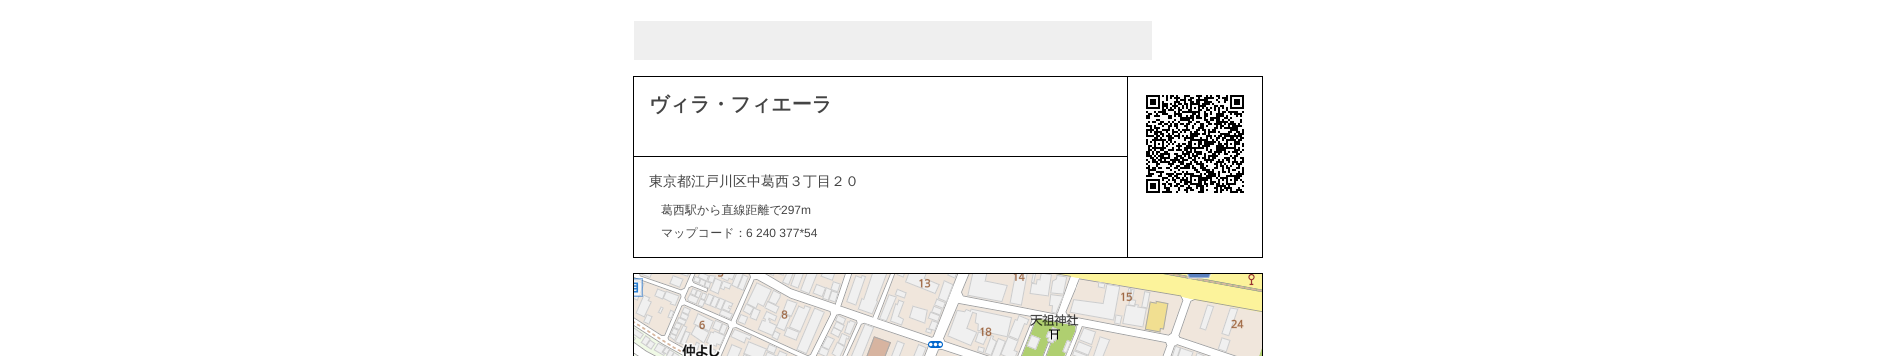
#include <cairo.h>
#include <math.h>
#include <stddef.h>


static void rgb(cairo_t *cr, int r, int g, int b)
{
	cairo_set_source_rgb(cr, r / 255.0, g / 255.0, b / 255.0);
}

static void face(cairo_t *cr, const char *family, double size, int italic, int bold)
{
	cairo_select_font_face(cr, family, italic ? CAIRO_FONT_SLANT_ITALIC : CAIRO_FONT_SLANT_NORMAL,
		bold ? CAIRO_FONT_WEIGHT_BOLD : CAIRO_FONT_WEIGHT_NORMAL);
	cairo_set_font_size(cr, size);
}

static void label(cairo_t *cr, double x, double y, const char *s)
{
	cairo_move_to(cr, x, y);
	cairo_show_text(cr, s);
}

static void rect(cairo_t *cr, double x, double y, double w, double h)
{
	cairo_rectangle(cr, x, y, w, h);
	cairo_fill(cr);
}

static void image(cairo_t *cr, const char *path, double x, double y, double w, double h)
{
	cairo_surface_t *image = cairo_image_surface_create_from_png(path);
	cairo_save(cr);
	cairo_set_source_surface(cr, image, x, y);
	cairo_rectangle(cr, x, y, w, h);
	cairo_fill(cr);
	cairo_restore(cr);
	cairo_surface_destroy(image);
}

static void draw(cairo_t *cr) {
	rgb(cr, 255, 255, 255);
	cairo_paint(cr);
	rgb(cr, 239, 239, 239);
	rect(cr, 634, 21, 518, 39);
	rgb(cr, 0, 0, 0);
	rect(cr, 633, 76, 630, 1);
	rect(cr, 1262, 76, 1, 182);
	rect(cr, 633, 257, 630, 1);
	rect(cr, 633, 76, 1, 182);
	rect(cr, 1127, 76, 1, 182);
	rect(cr, 633, 156, 495, 1);
	face(cr, "WenQuanYi Zen Hei", 20, 0, 1);
	rgb(cr, 68, 68, 68);
	label(cr, 649, 111, "ヴィラ・フィエーラ");
	image(cr, "image0.png", 1146, 95, 98, 98);
	face(cr, "WenQuanYi Zen Hei Medium", 14, 0, 0);
	label(cr, 649, 186, "東京都江戸川区中葛西３丁目２０");
	face(cr, "WenQuanYi Zen Hei Medium", 12, 0, 0);
	label(cr, 661, 214, "葛西駅から直線距離で");
	face(cr, "Liberation Sans", 12, 0, 0);
	label(cr, 781, 214, "297m");
	face(cr, "WenQuanYi Zen Hei Medium", 12, 0, 0);
	label(cr, 661, 237, "マップコード：");
	face(cr, "Liberation Sans", 12, 0, 0);
	label(cr, 746, 237, "6 240 377*54");
	cairo_rectangle(cr, 633.5, 273.5, 629, 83);
	rgb(cr, 0, 0, 0);
	cairo_set_line_width(cr, 1);
	cairo_stroke(cr);
	image(cr, "image1.png", 634, 274, 628, 82);
}

int main(void) {
	cairo_surface_t *surface = cairo_image_surface_create(CAIRO_FORMAT_RGB24, 1895, 356);
	cairo_t *cr = cairo_create(surface);
	cairo_font_options_t *options = cairo_font_options_create();
	cairo_font_options_set_hint_metrics(options, CAIRO_HINT_METRICS_OFF);
	cairo_font_options_set_hint_style(options, CAIRO_HINT_STYLE_NONE);
	cairo_set_font_options(cr, options);
	cairo_set_miter_limit(cr, 4);
	draw(cr);
	cairo_surface_write_to_png(surface, "render.png");
	cairo_font_options_destroy(options);
	cairo_destroy(cr);
	cairo_surface_destroy(surface);
	return 0;
}
